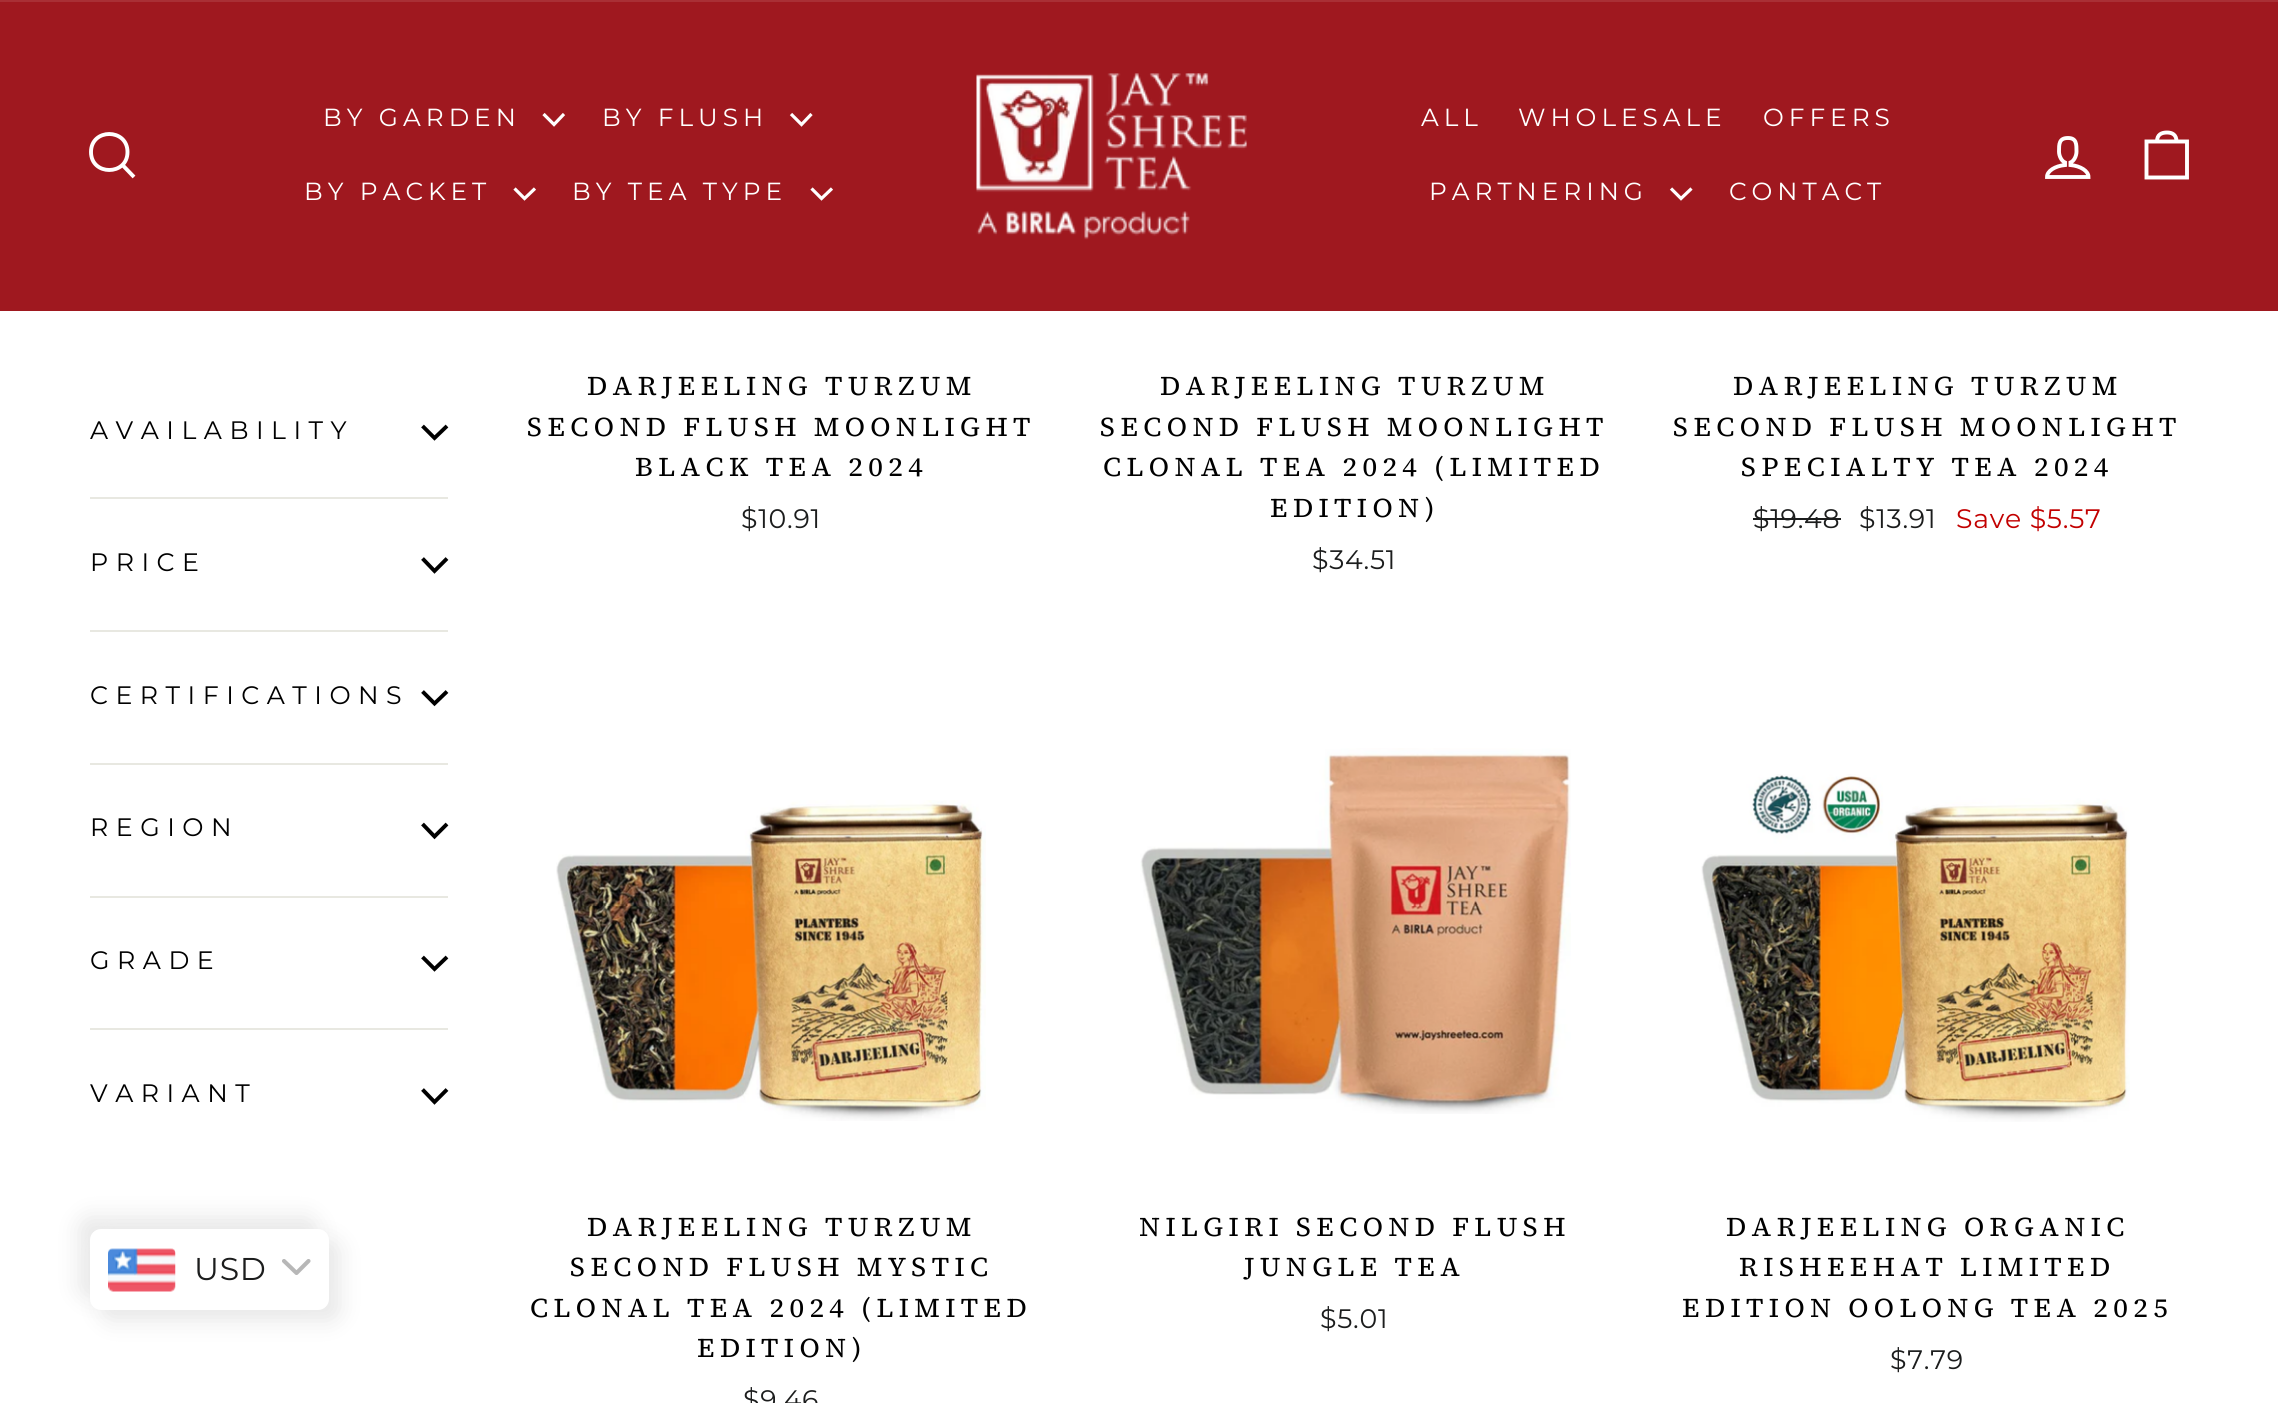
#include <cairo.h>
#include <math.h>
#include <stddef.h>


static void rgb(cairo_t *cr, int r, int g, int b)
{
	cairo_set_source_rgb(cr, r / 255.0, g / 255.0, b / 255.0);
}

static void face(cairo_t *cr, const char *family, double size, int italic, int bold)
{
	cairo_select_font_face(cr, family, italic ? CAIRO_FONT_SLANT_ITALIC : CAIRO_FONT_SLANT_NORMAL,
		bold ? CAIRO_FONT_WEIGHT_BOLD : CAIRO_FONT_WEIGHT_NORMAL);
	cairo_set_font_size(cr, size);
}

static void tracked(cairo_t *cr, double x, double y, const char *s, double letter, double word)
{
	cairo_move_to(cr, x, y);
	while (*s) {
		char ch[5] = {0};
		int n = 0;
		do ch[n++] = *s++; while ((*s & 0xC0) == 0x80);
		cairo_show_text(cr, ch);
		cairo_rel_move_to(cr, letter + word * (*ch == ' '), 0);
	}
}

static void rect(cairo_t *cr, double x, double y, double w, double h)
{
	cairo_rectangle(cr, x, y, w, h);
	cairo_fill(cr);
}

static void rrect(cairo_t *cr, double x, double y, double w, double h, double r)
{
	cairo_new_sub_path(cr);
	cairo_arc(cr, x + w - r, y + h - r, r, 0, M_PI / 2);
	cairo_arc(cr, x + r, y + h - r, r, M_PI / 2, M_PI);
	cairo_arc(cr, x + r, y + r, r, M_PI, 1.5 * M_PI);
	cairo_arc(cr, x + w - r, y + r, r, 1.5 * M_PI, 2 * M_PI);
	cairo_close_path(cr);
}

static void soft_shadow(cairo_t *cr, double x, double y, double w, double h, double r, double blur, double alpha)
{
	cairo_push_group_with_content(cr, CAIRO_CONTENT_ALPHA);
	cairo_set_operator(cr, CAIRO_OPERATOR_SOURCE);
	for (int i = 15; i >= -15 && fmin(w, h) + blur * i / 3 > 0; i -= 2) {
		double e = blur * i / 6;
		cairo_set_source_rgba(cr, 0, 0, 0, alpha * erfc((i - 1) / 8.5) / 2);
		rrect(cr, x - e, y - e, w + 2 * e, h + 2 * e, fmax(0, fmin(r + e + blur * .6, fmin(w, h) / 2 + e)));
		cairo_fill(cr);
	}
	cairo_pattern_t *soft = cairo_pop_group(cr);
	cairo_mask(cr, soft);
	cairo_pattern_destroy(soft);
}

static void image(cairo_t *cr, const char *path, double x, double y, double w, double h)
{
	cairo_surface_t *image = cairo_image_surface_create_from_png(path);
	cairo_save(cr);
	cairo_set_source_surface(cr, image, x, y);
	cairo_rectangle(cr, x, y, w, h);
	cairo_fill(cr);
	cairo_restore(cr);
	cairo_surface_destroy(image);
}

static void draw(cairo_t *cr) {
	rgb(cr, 255, 255, 255);
	cairo_paint(cr);
	rgb(cr, 159, 24, 31);
	rect(cr, 0, 2, 2278, 309);
	rgb(cr, 169, 47, 53);
	rect(cr, 0, 0, 2278, 2);
	cairo_new_path(cr);
	cairo_move_to(cr, 127.5, 152);
	cairo_curve_to(cr, 127.5, 176, 91, 176, 91, 152);
	cairo_curve_to(cr, 91, 128, 127.5, 128, 127.5, 152);
	cairo_close_path(cr);
	cairo_move_to(cr, 134, 177);
	cairo_line_to(cr, 122.5, 165);
	rgb(cr, 255, 255, 255);
	cairo_set_line_width(cr, 3.9);
	cairo_stroke(cr);
	face(cr, "Montserrat", 24.75, 0, 0);
	tracked(cr, 323, 126, "BY GARDEN", 5, 0);
	cairo_new_path(cr);
	cairo_move_to(cr, 543.5, 114);
	cairo_line_to(cr, 554, 124.5);
	cairo_line_to(cr, 564, 114);
	cairo_set_line_width(cr, 3.2);
	cairo_stroke(cr);
	tracked(cr, 602, 126, "BY FLUSH", 5, 0);
	cairo_new_path(cr);
	cairo_move_to(cr, 791, 114);
	cairo_line_to(cr, 801.5, 124.5);
	cairo_line_to(cr, 811.5, 114);
	cairo_stroke(cr);
	tracked(cr, 304, 200, "BY PACKET", 5, 0);
	cairo_new_path(cr);
	cairo_move_to(cr, 514.5, 188.5);
	cairo_line_to(cr, 524.5, 198.5);
	cairo_line_to(cr, 535, 188.5);
	cairo_stroke(cr);
	tracked(cr, 572, 200, "BY TEA TYPE", 5, 0);
	cairo_new_path(cr);
	cairo_move_to(cr, 811.5, 188.5);
	cairo_line_to(cr, 821.5, 198.5);
	cairo_line_to(cr, 832, 188.5);
	cairo_stroke(cr);
	image(cr, "image0.png", 976, 73, 271, 167);
	tracked(cr, 1421, 126, "ALL", 5, 0);
	tracked(cr, 1518, 126, "WHOLESALE", 5, 0);
	tracked(cr, 1763, 126, "OFFERS", 5, 0);
	tracked(cr, 1429, 200, "PARTNERING", 5, 0);
	cairo_new_path(cr);
	cairo_move_to(cr, 1671, 188.5);
	cairo_line_to(cr, 1681, 198.5);
	cairo_line_to(cr, 1691.5, 188.5);
	cairo_stroke(cr);
	tracked(cr, 1729, 200, "CONTACT", 5, 0);
	cairo_new_path(cr);
	cairo_move_to(cr, 2070.5, 165);
	cairo_line_to(cr, 2070.5, 162.5);
	cairo_curve_to(cr, 2074, 161, 2076.5, 156, 2076.5, 151.5);
	cairo_curve_to(cr, 2076.5, 144, 2076.5, 138, 2068, 138);
	cairo_curve_to(cr, 2059, 138, 2059, 144, 2059, 151.5);
	cairo_curve_to(cr, 2059, 156, 2061.5, 161, 2065, 162.5);
	cairo_line_to(cr, 2065, 165);
	cairo_curve_to(cr, 2055, 166, 2047, 171, 2047, 177);
	cairo_line_to(cr, 2088.5, 177);
	cairo_curve_to(cr, 2088.5, 171, 2080.5, 166, 2070.5, 165);
	cairo_close_path(cr);
	cairo_set_line_width(cr, 3.9);
	cairo_stroke(cr);
	cairo_new_path(cr);
	cairo_move_to(cr, 2146.5, 141.5);
	cairo_line_to(cr, 2187, 141.5);
	cairo_line_to(cr, 2187, 177.5);
	cairo_line_to(cr, 2146.5, 177.5);
	cairo_close_path(cr);
	cairo_move_to(cr, 2157, 141.5);
	cairo_curve_to(cr, 2157, 134.5, 2161.5, 132.5, 2167, 132.5);
	cairo_curve_to(cr, 2172, 132.5, 2176.5, 134.5, 2176.5, 141.5);
	cairo_stroke(cr);
	face(cr, "Montserrat", 25.25, 0, 0);
	rgb(cr, 0, 0, 0);
	tracked(cr, 90, 439, "AVAILABILITY", 7.5, 0);
	cairo_new_path(cr);
	cairo_move_to(cr, 422.5, 426);
	cairo_line_to(cr, 434.5, 438);
	cairo_line_to(cr, 447, 426);
	cairo_stroke(cr);
	rgb(cr, 232, 232, 225);
	rect(cr, 90, 497, 358, 2);
	rgb(cr, 0, 0, 0);
	tracked(cr, 90, 571, "PRICE", 7.5, 0);
	cairo_new_path(cr);
	cairo_move_to(cr, 422.5, 558.5);
	cairo_line_to(cr, 434.5, 571);
	cairo_line_to(cr, 447, 558.5);
	cairo_stroke(cr);
	rgb(cr, 232, 232, 225);
	rect(cr, 90, 630, 358, 2);
	rgb(cr, 0, 0, 0);
	tracked(cr, 90, 704, "CERTIFICATIONS", 7.5, 0);
	cairo_new_path(cr);
	cairo_move_to(cr, 422.5, 691.5);
	cairo_line_to(cr, 434.5, 703.5);
	cairo_line_to(cr, 447, 691.5);
	cairo_stroke(cr);
	rgb(cr, 232, 232, 225);
	rect(cr, 90, 763, 358, 2);
	rgb(cr, 0, 0, 0);
	tracked(cr, 90, 836, "REGION", 7.5, 0);
	cairo_new_path(cr);
	cairo_move_to(cr, 422.5, 824);
	cairo_line_to(cr, 434.5, 836.5);
	cairo_line_to(cr, 447, 824);
	cairo_stroke(cr);
	rgb(cr, 232, 232, 225);
	rect(cr, 90, 896, 358, 2);
	rgb(cr, 0, 0, 0);
	tracked(cr, 90, 969, "GRADE", 7.5, 0);
	cairo_new_path(cr);
	cairo_move_to(cr, 422.5, 957);
	cairo_line_to(cr, 434.5, 969);
	cairo_line_to(cr, 447, 957);
	cairo_stroke(cr);
	rgb(cr, 232, 232, 225);
	rect(cr, 90, 1028, 358, 2);
	rgb(cr, 0, 0, 0);
	tracked(cr, 90, 1102, "VARIANT", 7.5, 0);
	cairo_new_path(cr);
	cairo_move_to(cr, 422.5, 1089.5);
	cairo_line_to(cr, 434.5, 1102);
	cairo_line_to(cr, 447, 1089.5);
	cairo_stroke(cr);
	face(cr, "Source Serif 4", 27, 0, 0);
	tracked(cr, 587, 395, "DARJEELING TURZUM", 5.4, 0);
	tracked(cr, 527, 436, "SECOND FLUSH MOONLIGHT", 5.4, 0);
	tracked(cr, 635, 476, "BLACK TEA 2024", 5.4, 0);
	face(cr, "Montserrat", 26.75, 0, 0);
	rgb(cr, 28, 29, 29);
	tracked(cr, 741, 528, "$10.91", 0.75, 0);
	face(cr, "Source Serif 4", 27, 0, 0);
	rgb(cr, 0, 0, 0);
	tracked(cr, 1160, 395, "DARJEELING TURZUM", 5.4, 0);
	tracked(cr, 1100, 436, "SECOND FLUSH MOONLIGHT", 5.4, 0);
	tracked(cr, 1103, 476, "CLONAL TEA 2024 (LIMITED", 5.4, 0);
	tracked(cr, 1270, 517, "EDITION)", 5.4, 0);
	face(cr, "Montserrat", 26.75, 0, 0);
	rgb(cr, 28, 29, 29);
	tracked(cr, 1312, 569, "$34.51", 0.75, 0);
	face(cr, "Source Serif 4", 27, 0, 0);
	rgb(cr, 0, 0, 0);
	tracked(cr, 1733, 395, "DARJEELING TURZUM", 5.4, 0);
	tracked(cr, 1673, 436, "SECOND FLUSH MOONLIGHT", 5.4, 0);
	tracked(cr, 1741, 476, "SPECIALTY TEA 2024", 5.4, 0);
	face(cr, "Montserrat", 26.75, 0, 0);
	rgb(cr, 28, 29, 29);
	tracked(cr, 1753, 528, "$19.48", 0.75, 0);
	rect(cr, 1753, 518, 88, 2);
	tracked(cr, 1859, 528, "$13.91", 0.75, 0);
	rgb(cr, 194, 0, 0);
	tracked(cr, 1956, 528, "Save $5.57", 0.75, 0);
	image(cr, "image1.png", 556, 800, 430, 321);
	face(cr, "Source Serif 4", 27, 0, 0);
	rgb(cr, 0, 0, 0);
	tracked(cr, 587, 1236, "DARJEELING TURZUM", 5.4, 0);
	tracked(cr, 570, 1276, "SECOND FLUSH MYSTIC", 5.4, 0);
	tracked(cr, 530, 1317, "CLONAL TEA 2024 (LIMITED", 5.4, 0);
	tracked(cr, 697, 1357, "EDITION)", 5.4, 0);
	face(cr, "Montserrat", 26.75, 0, 0);
	rgb(cr, 28, 29, 29);
	tracked(cr, 743, 1409, "$9.46", 0.75, 0);
	image(cr, "image2.png", 1140, 748, 431, 366);
	face(cr, "Source Serif 4", 27, 0, 0);
	rgb(cr, 0, 0, 0);
	tracked(cr, 1139, 1236, "NILGIRI SECOND FLUSH", 5.4, 0);
	tracked(cr, 1244, 1276, "JUNGLE TEA", 5.4, 0);
	face(cr, "Montserrat", 26.75, 0, 0);
	rgb(cr, 28, 29, 29);
	tracked(cr, 1320, 1328, "$5.01", 0.75, 0);
	image(cr, "image3.png", 1701, 774, 429, 348);
	face(cr, "Source Serif 4", 27, 0, 0);
	rgb(cr, 0, 0, 0);
	tracked(cr, 1726, 1236, "DARJEELING ORGANIC", 5.4, 0);
	tracked(cr, 1739, 1276, "RISHEEHAT LIMITED", 5.4, 0);
	tracked(cr, 1682, 1317, "EDITION OOLONG TEA 2025", 5.4, 0);
	face(cr, "Montserrat", 26.75, 0, 0);
	rgb(cr, 28, 29, 29);
	tracked(cr, 1890, 1369, "$7.79", 0.75, 0);
	rgb(cr, 232, 232, 232);
	soft_shadow(cr, 79, 1217, 238, 81, 11, 11, 1);
	soft_shadow(cr, 101, 1240, 239, 81, 11, 11, 1);
	rgb(cr, 255, 255, 255);
	rrect(cr, 90, 1229, 239, 81, 11);
	cairo_fill(cr);
	image(cr, "image4.png", 108, 1248, 68, 44);
	face(cr, "Montserrat", 31.5, 0, 0);
	rgb(cr, 28, 29, 29);
	tracked(cr, 194, 1280, "USD", 0.75, 0);
	cairo_new_path(cr);
	cairo_move_to(cr, 284, 1261);
	cairo_line_to(cr, 296.5, 1273);
	cairo_line_to(cr, 308.5, 1261);
	rgb(cr, 183, 183, 183);
	cairo_set_line_width(cr, 4.1);
	cairo_set_line_cap(cr, CAIRO_LINE_CAP_ROUND);
	cairo_set_line_join(cr, CAIRO_LINE_JOIN_ROUND);
	cairo_stroke(cr);
}

int main(void) {
	cairo_surface_t *surface = cairo_image_surface_create(CAIRO_FORMAT_RGB24, 2278, 1403);
	cairo_t *cr = cairo_create(surface);
	cairo_font_options_t *options = cairo_font_options_create();
	cairo_font_options_set_hint_metrics(options, CAIRO_HINT_METRICS_OFF);
	cairo_font_options_set_hint_style(options, CAIRO_HINT_STYLE_NONE);
	cairo_set_font_options(cr, options);
	cairo_set_miter_limit(cr, 4);
	draw(cr);
	cairo_surface_write_to_png(surface, "render.png");
	cairo_font_options_destroy(options);
	cairo_destroy(cr);
	cairo_surface_destroy(surface);
	return 0;
}
